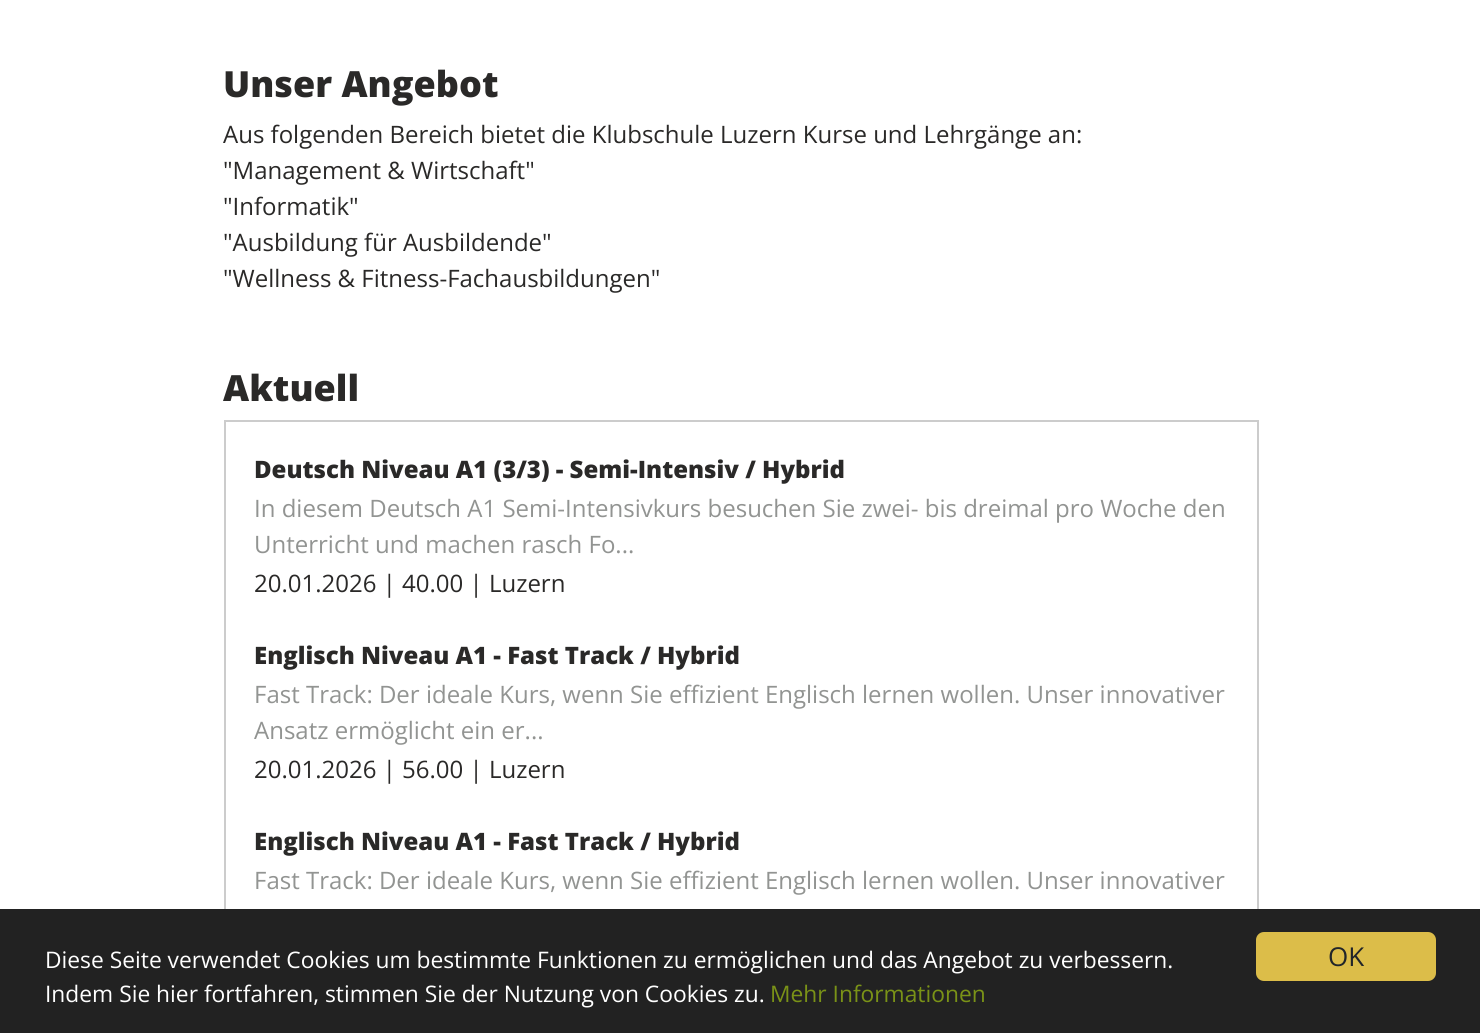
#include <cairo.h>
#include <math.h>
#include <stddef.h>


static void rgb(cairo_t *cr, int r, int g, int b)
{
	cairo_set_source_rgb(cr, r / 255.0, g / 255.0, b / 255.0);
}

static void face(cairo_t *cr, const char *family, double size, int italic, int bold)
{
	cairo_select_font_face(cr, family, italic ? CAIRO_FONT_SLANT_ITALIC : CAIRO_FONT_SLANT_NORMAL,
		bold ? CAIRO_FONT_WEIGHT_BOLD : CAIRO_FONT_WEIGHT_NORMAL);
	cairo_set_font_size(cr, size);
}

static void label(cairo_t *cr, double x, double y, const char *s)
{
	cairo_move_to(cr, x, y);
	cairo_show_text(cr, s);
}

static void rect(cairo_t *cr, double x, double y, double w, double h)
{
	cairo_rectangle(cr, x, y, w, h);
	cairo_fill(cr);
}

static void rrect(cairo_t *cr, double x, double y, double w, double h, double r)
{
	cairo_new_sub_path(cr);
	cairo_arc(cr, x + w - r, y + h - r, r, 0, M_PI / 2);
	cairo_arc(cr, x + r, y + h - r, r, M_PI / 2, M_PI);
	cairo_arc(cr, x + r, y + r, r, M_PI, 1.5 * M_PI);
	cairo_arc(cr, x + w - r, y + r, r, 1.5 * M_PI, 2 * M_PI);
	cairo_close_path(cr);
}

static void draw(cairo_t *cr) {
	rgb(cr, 255, 255, 255);
	cairo_paint(cr);
	face(cr, "Open Sans ExtraBold", 36, 0, 0);
	rgb(cr, 42, 41, 40);
	label(cr, 223, 97, "Unser Angebot");
	face(cr, "Open Sans", 24, 0, 0);
	label(cr, 223, 143, "Aus folgenden Bereich bietet die Klubschule Luzern Kurse und Lehrgänge an:");
	label(cr, 223, 179, "\"Management & Wirtschaft\"");
	label(cr, 223, 215, "\"Informatik\"");
	label(cr, 223, 251, "\"Ausbildung für Ausbildende\"");
	label(cr, 223, 287, "\"Wellness & Fitness-Fachausbildungen\"");
	face(cr, "Open Sans ExtraBold", 36, 0, 0);
	label(cr, 223, 401, "Aktuell");
	cairo_rectangle(cr, 225, 421, 1033, 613);
	rgb(cr, 204, 204, 204);
	cairo_stroke(cr);
	face(cr, "Open Sans ExtraBold", 24, 0, 0);
	rgb(cr, 42, 41, 40);
	label(cr, 254, 478, "Deutsch Niveau A1 (3/3) - Semi-Intensiv / Hybrid");
	face(cr, "Open Sans", 24, 0, 0);
	rgb(cr, 146, 148, 146);
	label(cr, 254, 517, "In diesem Deutsch A1 Semi-Intensivkurs besuchen Sie zwei- bis dreimal pro Woche den");
	label(cr, 254, 553, "Unterricht und machen rasch Fo...");
	rgb(cr, 42, 41, 40);
	label(cr, 254, 592, "20.01.2026 | 40.00 | Luzern");
	face(cr, "Open Sans ExtraBold", 24, 0, 0);
	label(cr, 254, 664, "Englisch Niveau A1 - Fast Track / Hybrid");
	face(cr, "Open Sans", 24, 0, 0);
	rgb(cr, 146, 148, 146);
	label(cr, 254, 703, "Fast Track: Der ideale Kurs, wenn Sie effizient Englisch lernen wollen. Unser innovativer");
	label(cr, 254, 739, "Ansatz ermöglicht ein er...");
	rgb(cr, 42, 41, 40);
	label(cr, 254, 778, "20.01.2026 | 56.00 | Luzern");
	face(cr, "Open Sans ExtraBold", 24, 0, 0);
	label(cr, 254, 850, "Englisch Niveau A1 - Fast Track / Hybrid");
	face(cr, "Open Sans", 24, 0, 0);
	rgb(cr, 146, 148, 146);
	label(cr, 254, 889, "Fast Track: Der ideale Kurs, wenn Sie effizient Englisch lernen wollen. Unser innovativer");
	rgb(cr, 34, 34, 34);
	rect(cr, 0, 909, 1480, 124);
	face(cr, "Open Sans", 22.8, 0, 0);
	rgb(cr, 255, 255, 255);
	label(cr, 45, 968, "Diese Seite verwendet Cookies um bestimmte Funktionen zu ermöglichen und das Angebot zu verbessern.");
	label(cr, 45, 1002, "Indem Sie hier fortfahren, stimmen Sie der Nutzung von Cookies zu.");
	rgb(cr, 122, 146, 23);
	label(cr, 770, 1002, "Mehr Informationen");
	rgb(cr, 220, 189, 73);
	rrect(cr, 1256, 932, 180, 49, 8);
	cairo_fill(cr);
	face(cr, "Open Sans", 26, 0, 0);
	rgb(cr, 33, 37, 41);
	label(cr, 1328, 966, "OK");
}

int main(void) {
	cairo_surface_t *surface = cairo_image_surface_create(CAIRO_FORMAT_RGB24, 1480, 1033);
	cairo_t *cr = cairo_create(surface);
	cairo_font_options_t *options = cairo_font_options_create();
	cairo_font_options_set_hint_metrics(options, CAIRO_HINT_METRICS_OFF);
	cairo_font_options_set_hint_style(options, CAIRO_HINT_STYLE_NONE);
	cairo_set_font_options(cr, options);
	cairo_set_miter_limit(cr, 4);
	draw(cr);
	cairo_surface_write_to_png(surface, "render.png");
	cairo_font_options_destroy(options);
	cairo_destroy(cr);
	cairo_surface_destroy(surface);
	return 0;
}
